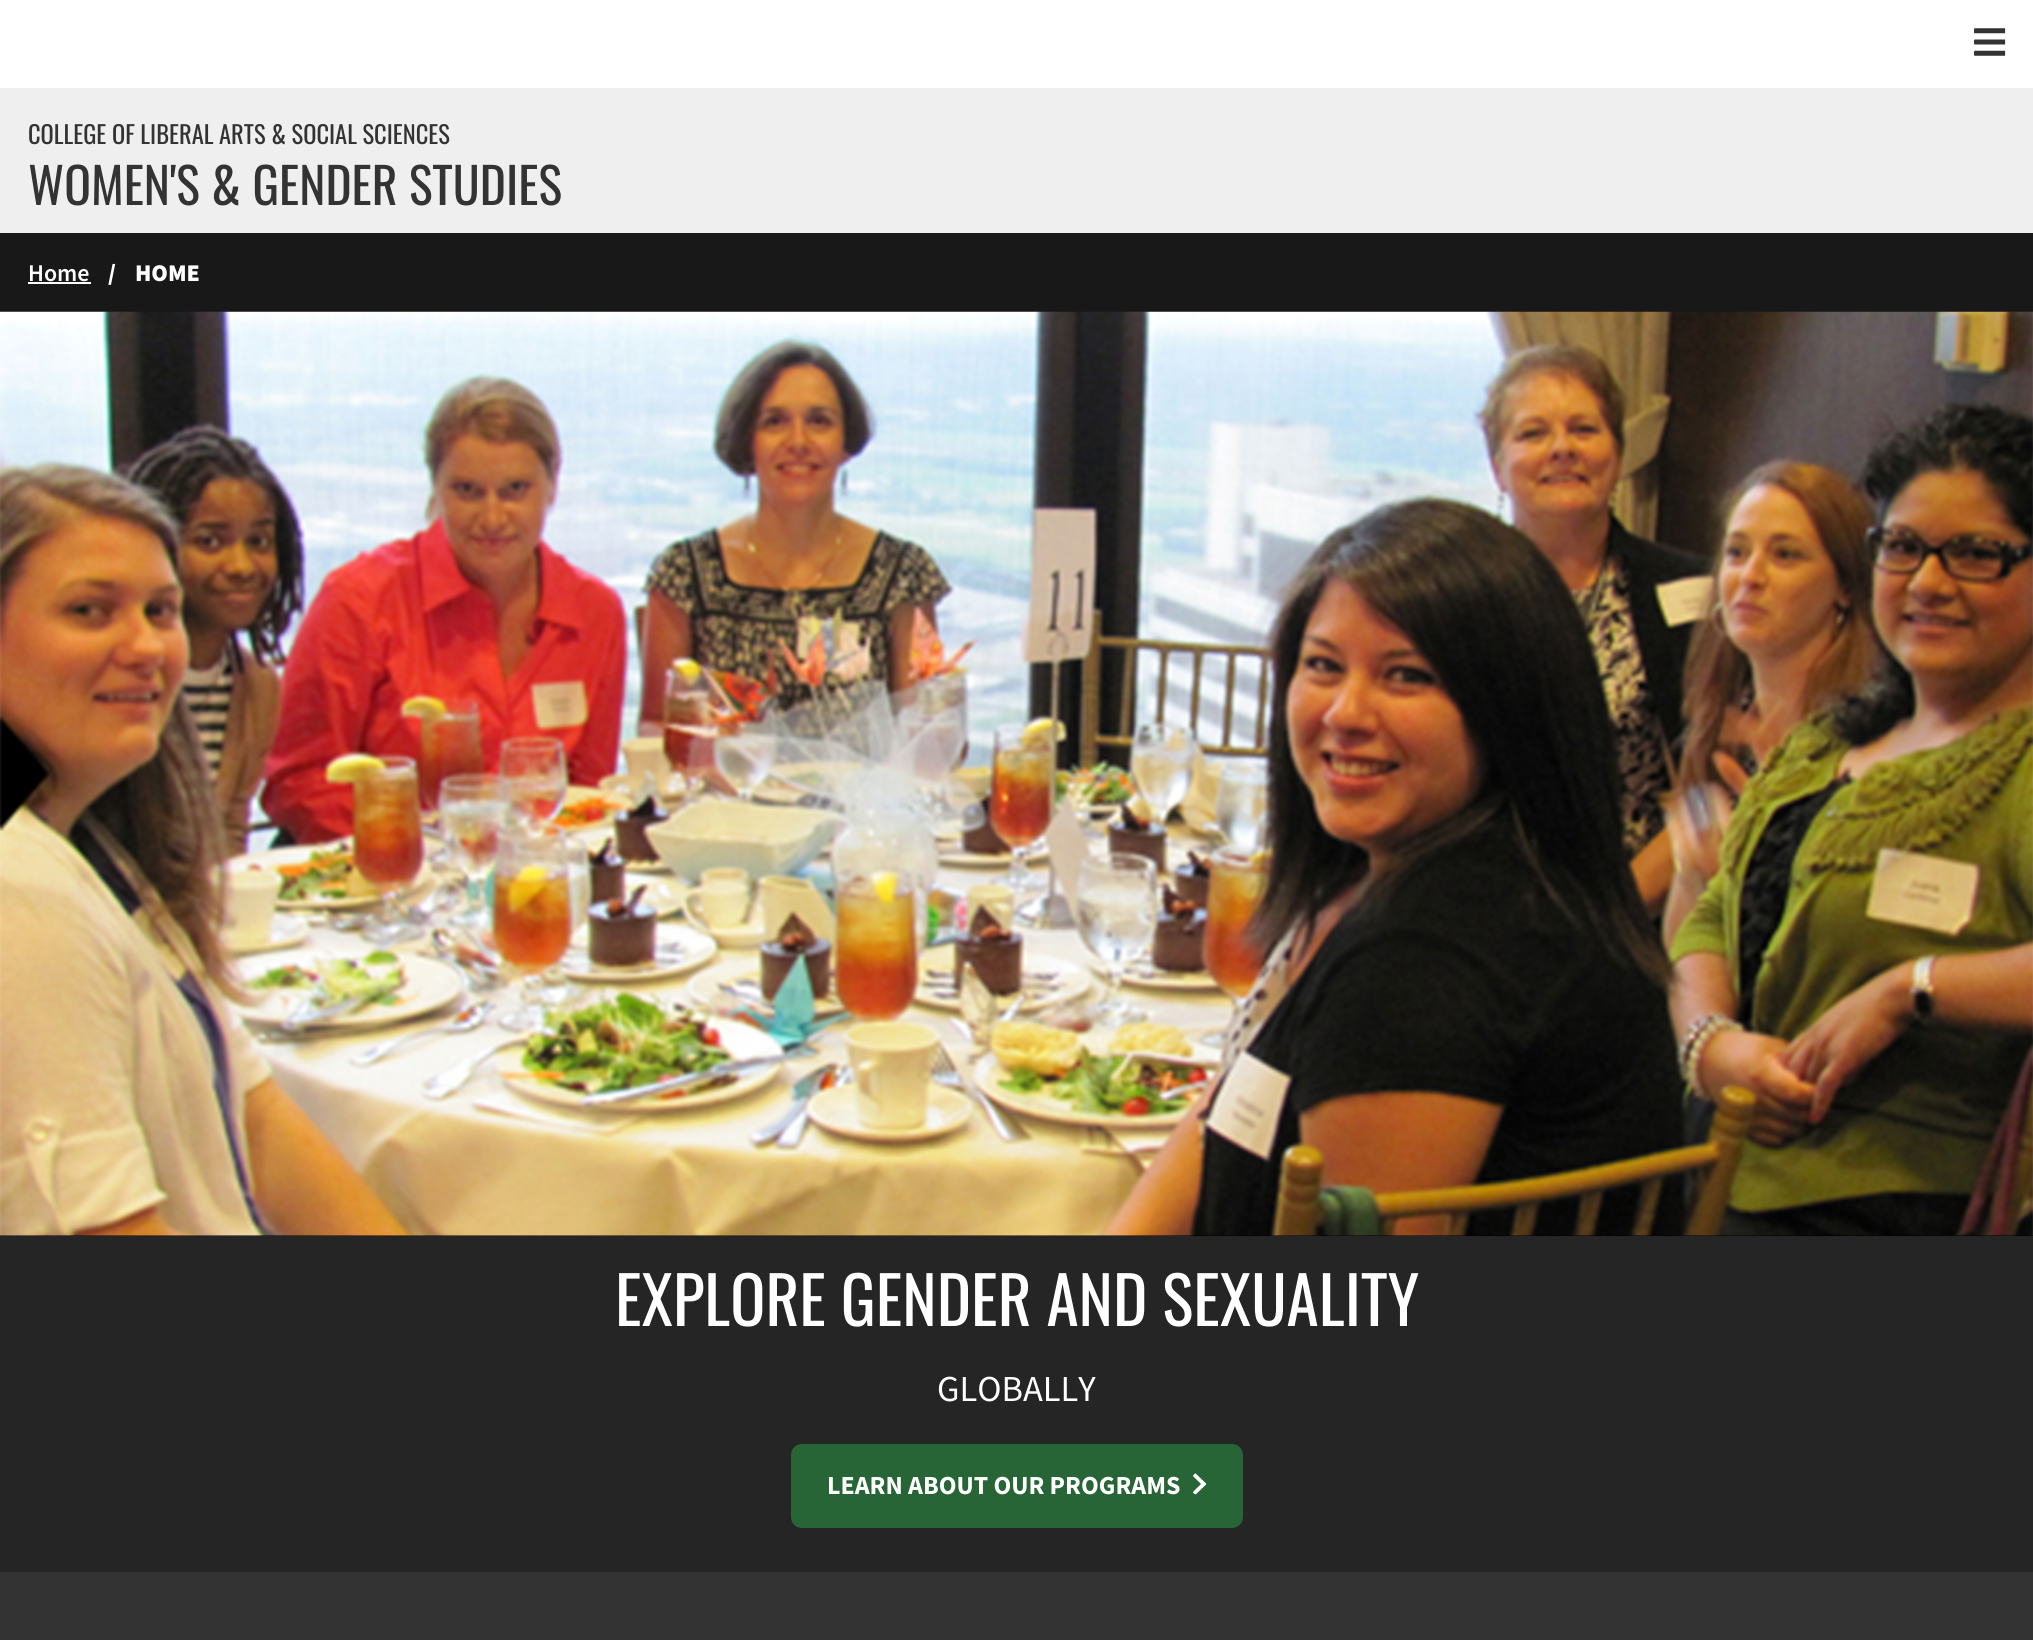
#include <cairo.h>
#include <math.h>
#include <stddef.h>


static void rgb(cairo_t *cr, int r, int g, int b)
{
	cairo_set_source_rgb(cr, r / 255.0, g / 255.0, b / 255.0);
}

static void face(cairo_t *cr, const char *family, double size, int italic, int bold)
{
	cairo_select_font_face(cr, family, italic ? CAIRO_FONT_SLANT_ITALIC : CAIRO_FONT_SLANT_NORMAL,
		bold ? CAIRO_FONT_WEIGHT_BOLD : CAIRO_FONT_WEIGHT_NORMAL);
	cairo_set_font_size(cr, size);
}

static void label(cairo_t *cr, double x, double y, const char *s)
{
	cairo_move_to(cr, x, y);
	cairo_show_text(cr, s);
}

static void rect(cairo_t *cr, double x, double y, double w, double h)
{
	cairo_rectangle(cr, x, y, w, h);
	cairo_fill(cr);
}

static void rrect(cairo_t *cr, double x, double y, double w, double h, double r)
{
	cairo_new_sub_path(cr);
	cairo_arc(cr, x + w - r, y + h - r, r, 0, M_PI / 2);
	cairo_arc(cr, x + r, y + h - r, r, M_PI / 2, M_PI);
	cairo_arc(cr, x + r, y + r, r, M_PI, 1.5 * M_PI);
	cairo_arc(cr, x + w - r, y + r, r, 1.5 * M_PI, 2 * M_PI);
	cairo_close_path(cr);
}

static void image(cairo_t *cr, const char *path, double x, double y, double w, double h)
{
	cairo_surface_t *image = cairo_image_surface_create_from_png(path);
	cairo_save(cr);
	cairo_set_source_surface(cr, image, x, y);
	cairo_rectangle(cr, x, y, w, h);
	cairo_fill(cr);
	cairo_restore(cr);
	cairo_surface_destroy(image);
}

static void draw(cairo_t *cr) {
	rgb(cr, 255, 255, 255);
	cairo_paint(cr);
	image(cr, "image0.png", 1974, 28, 32, 28);
	rgb(cr, 239, 239, 239);
	rect(cr, 0, 88, 2033, 145);
	face(cr, "Oswald", 24.5, 0, 0);
	rgb(cr, 51, 51, 51);
	label(cr, 28, 144, "COLLEGE OF LIBERAL ARTS & SOCIAL SCIENCES");
	face(cr, "Oswald", 49.6, 0, 0);
	label(cr, 28, 205, "WOMEN'S & GENDER STUDIES");
	rgb(cr, 24, 24, 24);
	rect(cr, 0, 233, 2033, 79);
	face(cr, "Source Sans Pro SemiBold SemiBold", 24, 0, 0);
	rgb(cr, 255, 255, 255);
	label(cr, 28, 281, "Home");
	rect(cr, 28, 282, 63, 2);
	face(cr, "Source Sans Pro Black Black", 24, 0, 0);
	label(cr, 108, 281, "/");
	label(cr, 135, 281, "HOME");
	rgb(cr, 0, 0, 0);
	rect(cr, 0, 1235, 2033, 1);
	image(cr, "image1.png", 0, 311, 2033, 925);
	rgb(cr, 37, 37, 37);
	rect(cr, 0, 1236, 2033, 336);
	face(cr, "Oswald", 65.25, 0, 0);
	rgb(cr, 255, 255, 255);
	label(cr, 615, 1326, "EXPLORE GENDER AND SEXUALITY");
	face(cr, "Source Sans Pro", 36.5, 0, 0);
	label(cr, 937, 1401, "GLOBALLY");
	rgb(cr, 39, 100, 54);
	rrect(cr, 791, 1444, 452, 84, 11);
	cairo_fill(cr);
	face(cr, "Source Sans Pro", 26, 0, 1);
	rgb(cr, 255, 255, 255);
	label(cr, 827, 1494, "LEARN ABOUT OUR PROGRAMS");
	image(cr, "image2.png", 1193, 1473, 14, 22);
	rgb(cr, 51, 51, 51);
	rect(cr, 0, 1572, 2033, 68);
}

int main(void) {
	cairo_surface_t *surface = cairo_image_surface_create(CAIRO_FORMAT_RGB24, 2033, 1640);
	cairo_t *cr = cairo_create(surface);
	cairo_font_options_t *options = cairo_font_options_create();
	cairo_font_options_set_hint_metrics(options, CAIRO_HINT_METRICS_OFF);
	cairo_font_options_set_hint_style(options, CAIRO_HINT_STYLE_NONE);
	cairo_set_font_options(cr, options);
	cairo_set_miter_limit(cr, 4);
	draw(cr);
	cairo_surface_write_to_png(surface, "render.png");
	cairo_font_options_destroy(options);
	cairo_destroy(cr);
	cairo_surface_destroy(surface);
	return 0;
}
